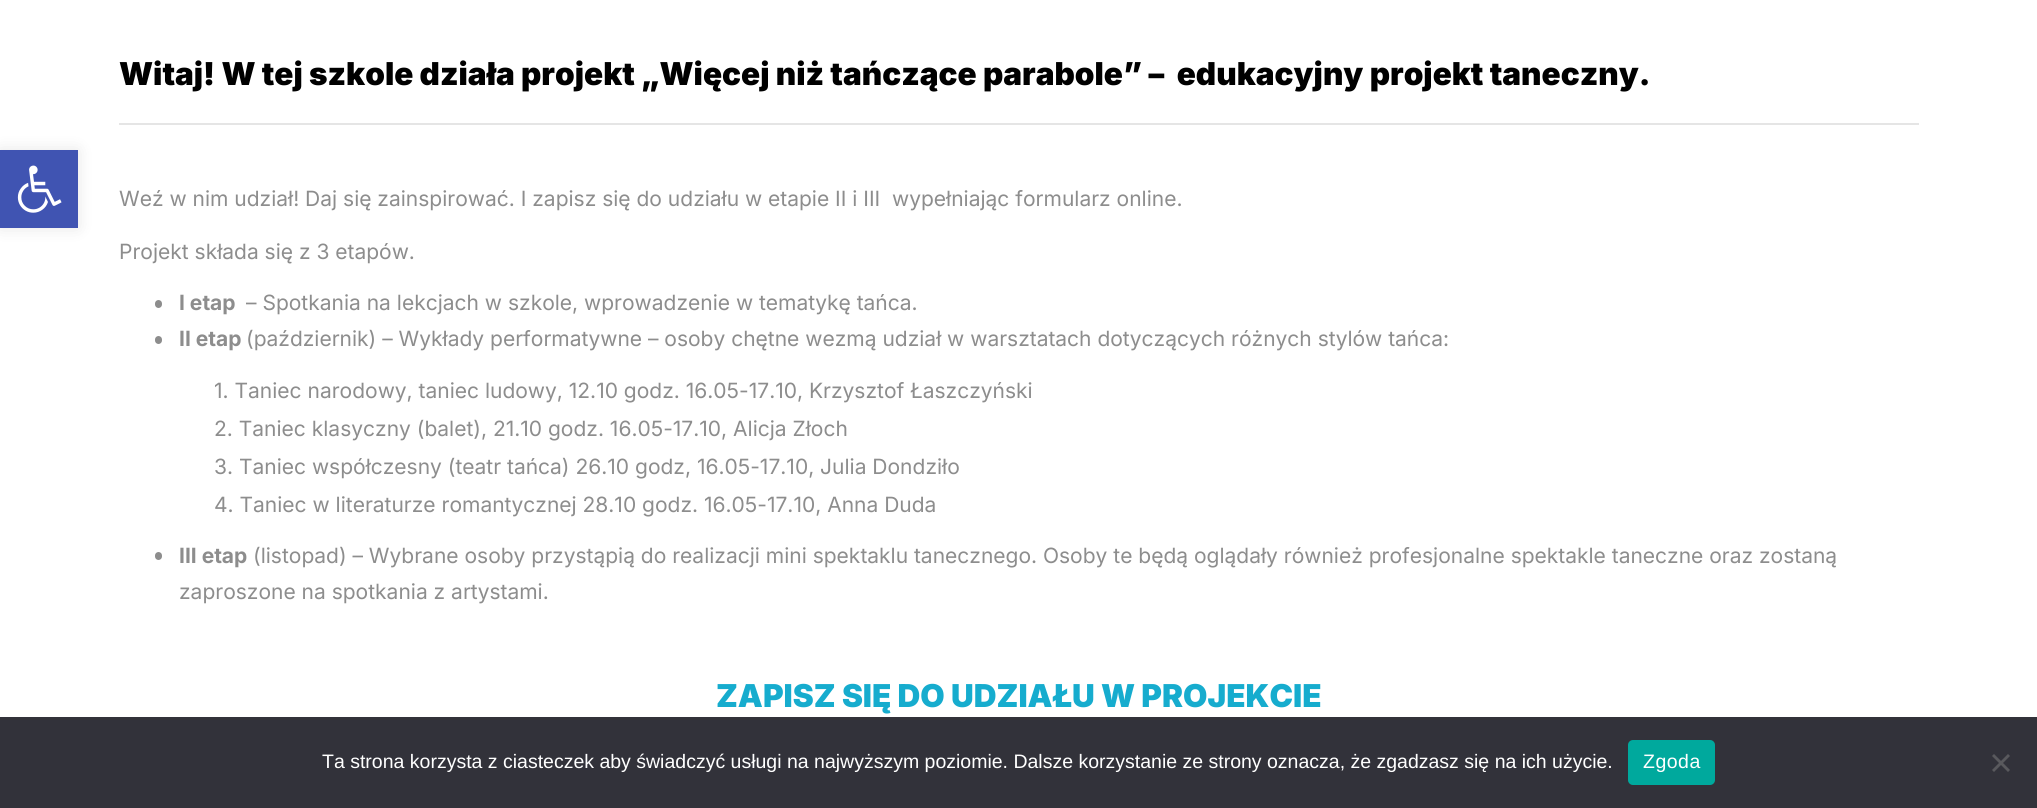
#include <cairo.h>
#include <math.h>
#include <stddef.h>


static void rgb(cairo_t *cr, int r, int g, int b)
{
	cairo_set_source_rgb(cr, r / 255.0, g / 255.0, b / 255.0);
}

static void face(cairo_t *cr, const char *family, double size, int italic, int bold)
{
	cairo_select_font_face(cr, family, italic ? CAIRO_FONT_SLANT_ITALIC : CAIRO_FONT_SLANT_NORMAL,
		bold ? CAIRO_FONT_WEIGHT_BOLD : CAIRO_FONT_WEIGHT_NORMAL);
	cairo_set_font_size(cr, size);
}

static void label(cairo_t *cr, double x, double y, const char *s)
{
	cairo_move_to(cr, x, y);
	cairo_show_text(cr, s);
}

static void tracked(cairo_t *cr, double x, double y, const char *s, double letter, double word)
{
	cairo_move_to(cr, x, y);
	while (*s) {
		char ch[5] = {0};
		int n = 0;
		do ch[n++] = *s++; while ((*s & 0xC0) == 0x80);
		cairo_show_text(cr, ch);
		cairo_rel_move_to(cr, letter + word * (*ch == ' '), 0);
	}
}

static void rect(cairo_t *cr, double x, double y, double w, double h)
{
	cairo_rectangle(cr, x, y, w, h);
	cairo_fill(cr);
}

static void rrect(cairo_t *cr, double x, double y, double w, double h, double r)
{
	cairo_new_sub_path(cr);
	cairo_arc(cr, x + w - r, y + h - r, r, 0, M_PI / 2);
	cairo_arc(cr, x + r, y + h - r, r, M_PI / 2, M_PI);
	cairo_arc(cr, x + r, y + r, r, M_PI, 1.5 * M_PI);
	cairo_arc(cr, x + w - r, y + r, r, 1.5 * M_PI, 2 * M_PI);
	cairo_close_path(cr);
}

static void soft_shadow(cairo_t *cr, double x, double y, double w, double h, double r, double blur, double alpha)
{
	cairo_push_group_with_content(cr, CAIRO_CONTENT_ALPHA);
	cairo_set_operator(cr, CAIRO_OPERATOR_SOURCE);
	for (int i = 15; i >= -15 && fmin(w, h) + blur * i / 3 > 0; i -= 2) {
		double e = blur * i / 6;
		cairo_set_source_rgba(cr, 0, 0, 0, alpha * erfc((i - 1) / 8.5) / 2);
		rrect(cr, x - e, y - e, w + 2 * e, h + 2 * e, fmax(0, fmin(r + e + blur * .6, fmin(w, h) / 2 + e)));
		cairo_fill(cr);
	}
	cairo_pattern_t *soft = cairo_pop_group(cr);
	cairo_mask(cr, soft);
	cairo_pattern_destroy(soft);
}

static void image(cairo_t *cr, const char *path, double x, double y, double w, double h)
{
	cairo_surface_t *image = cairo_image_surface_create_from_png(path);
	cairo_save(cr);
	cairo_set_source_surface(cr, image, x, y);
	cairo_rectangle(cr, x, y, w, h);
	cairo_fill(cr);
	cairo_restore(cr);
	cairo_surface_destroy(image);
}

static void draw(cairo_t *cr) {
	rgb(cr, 255, 255, 255);
	cairo_paint(cr);
	rgb(cr, 0, 0, 0);
	soft_shadow(cr, 0, 150, 78, 78, 0, 7.5, 0.1);
	rgb(cr, 64, 84, 178);
	rect(cr, 0, 150, 78, 78);
	image(cr, "image0.png", 17, 165, 45, 48);
	face(cr, "Inter Black", 31.5, 0, 0);
	rgb(cr, 0, 0, 0);
	label(cr, 119, 85, "Witaj! W tej szkole działa projekt „Więcej niż tańczące parabole” –  edukacyjny projekt taneczny.");
	rgb(cr, 229, 229, 229);
	rect(cr, 119, 123, 1800, 2);
	face(cr, "Inter", 21, 0, 0);
	rgb(cr, 141, 141, 141);
	label(cr, 119, 206, "Weź w nim udział! Daj się zainspirować. I zapisz się do udziału w etapie II i III  wypełniając formularz online.");
	label(cr, 119, 259, "Projekt składa się z 3 etapów.");
	rrect(cr, 155, 300, 7, 8, 3.5);
	cairo_fill(cr);
	face(cr, "Inter", 21, 0, 1);
	label(cr, 179, 310, "I etap");
	face(cr, "Inter", 21, 0, 0);
	label(cr, 246, 310, "– Spotkania na lekcjach w szkole, wprowadzenie w tematykę tańca.");
	rrect(cr, 155, 336, 7, 8, 3.5);
	cairo_fill(cr);
	face(cr, "Inter", 21, 0, 1);
	label(cr, 179, 346, "II etap");
	face(cr, "Inter", 21, 0, 0);
	label(cr, 246, 346, "(październik) – Wykłady performatywne – osoby chętne wezmą udział w warsztatach dotyczących różnych stylów tańca:");
	label(cr, 214, 398, "1. Taniec narodowy, taniec ludowy, 12.10 godz. 16.05-17.10, Krzysztof Łaszczyński");
	label(cr, 214, 436, "2. Taniec klasyczny (balet), 21.10 godz. 16.05-17.10, Alicja Złoch");
	label(cr, 214, 474, "3. Taniec współczesny (teatr tańca) 26.10 godz, 16.05-17.10, Julia Dondziło");
	label(cr, 214, 512, "4. Taniec w literaturze romantycznej 28.10 godz. 16.05-17.10, Anna Duda");
	rrect(cr, 155, 552, 7, 8, 3.5);
	cairo_fill(cr);
	face(cr, "Inter", 21, 0, 1);
	label(cr, 179, 563, "III etap");
	face(cr, "Inter", 21, 0, 0);
	label(cr, 253, 563, "(listopad) – Wybrane osoby przystąpią do realizacji mini spektaklu tanecznego. Osoby te będą oglądały również profesjonalne spektakle taneczne oraz zostaną");
	label(cr, 179, 599, "zaproszone na spotkania z artystami.");
	face(cr, "Inter Black", 31.5, 0, 0);
	rgb(cr, 22, 172, 206);
	label(cr, 716, 707, "ZAPISZ SIĘ DO UDZIAŁU W PROJEKCIE");
	rgb(cr, 50, 50, 58);
	rect(cr, 0, 717, 2037, 91);
	face(cr, "Liberation Sans", 19.5, 0, 0);
	rgb(cr, 255, 255, 255);
	label(cr, 322, 768, "Ta strona korzysta z ciasteczek aby świadczyć usługi na najwyższym poziomie. Dalsze korzystanie ze strony oznacza, że zgadzasz się na ich użycie.");
	rgb(cr, 0, 169, 157);
	rrect(cr, 1628, 740, 87, 45, 5);
	cairo_fill(cr);
	rgb(cr, 255, 255, 255);
	tracked(cr, 1643, 768, "Zgoda", 0.5, 0);
	rgb(cr, 89, 89, 93);
	cairo_new_path(cr);
	cairo_move_to(cr, 2008, 754);
	cairo_line_to(cr, 2010, 756);
	cairo_line_to(cr, 1994, 772);
	cairo_line_to(cr, 1992, 770);
	cairo_close_path(cr);
	cairo_fill(cr);
	cairo_new_path(cr);
	cairo_move_to(cr, 1992, 756);
	cairo_line_to(cr, 1994, 754);
	cairo_line_to(cr, 2010, 770);
	cairo_line_to(cr, 2008, 772);
	cairo_close_path(cr);
	cairo_fill(cr);
}

int main(void) {
	cairo_surface_t *surface = cairo_image_surface_create(CAIRO_FORMAT_RGB24, 2037, 808);
	cairo_t *cr = cairo_create(surface);
	cairo_font_options_t *options = cairo_font_options_create();
	cairo_font_options_set_hint_metrics(options, CAIRO_HINT_METRICS_OFF);
	cairo_font_options_set_hint_style(options, CAIRO_HINT_STYLE_NONE);
	cairo_set_font_options(cr, options);
	cairo_set_miter_limit(cr, 4);
	draw(cr);
	cairo_surface_write_to_png(surface, "render.png");
	cairo_font_options_destroy(options);
	cairo_destroy(cr);
	cairo_surface_destroy(surface);
	return 0;
}
